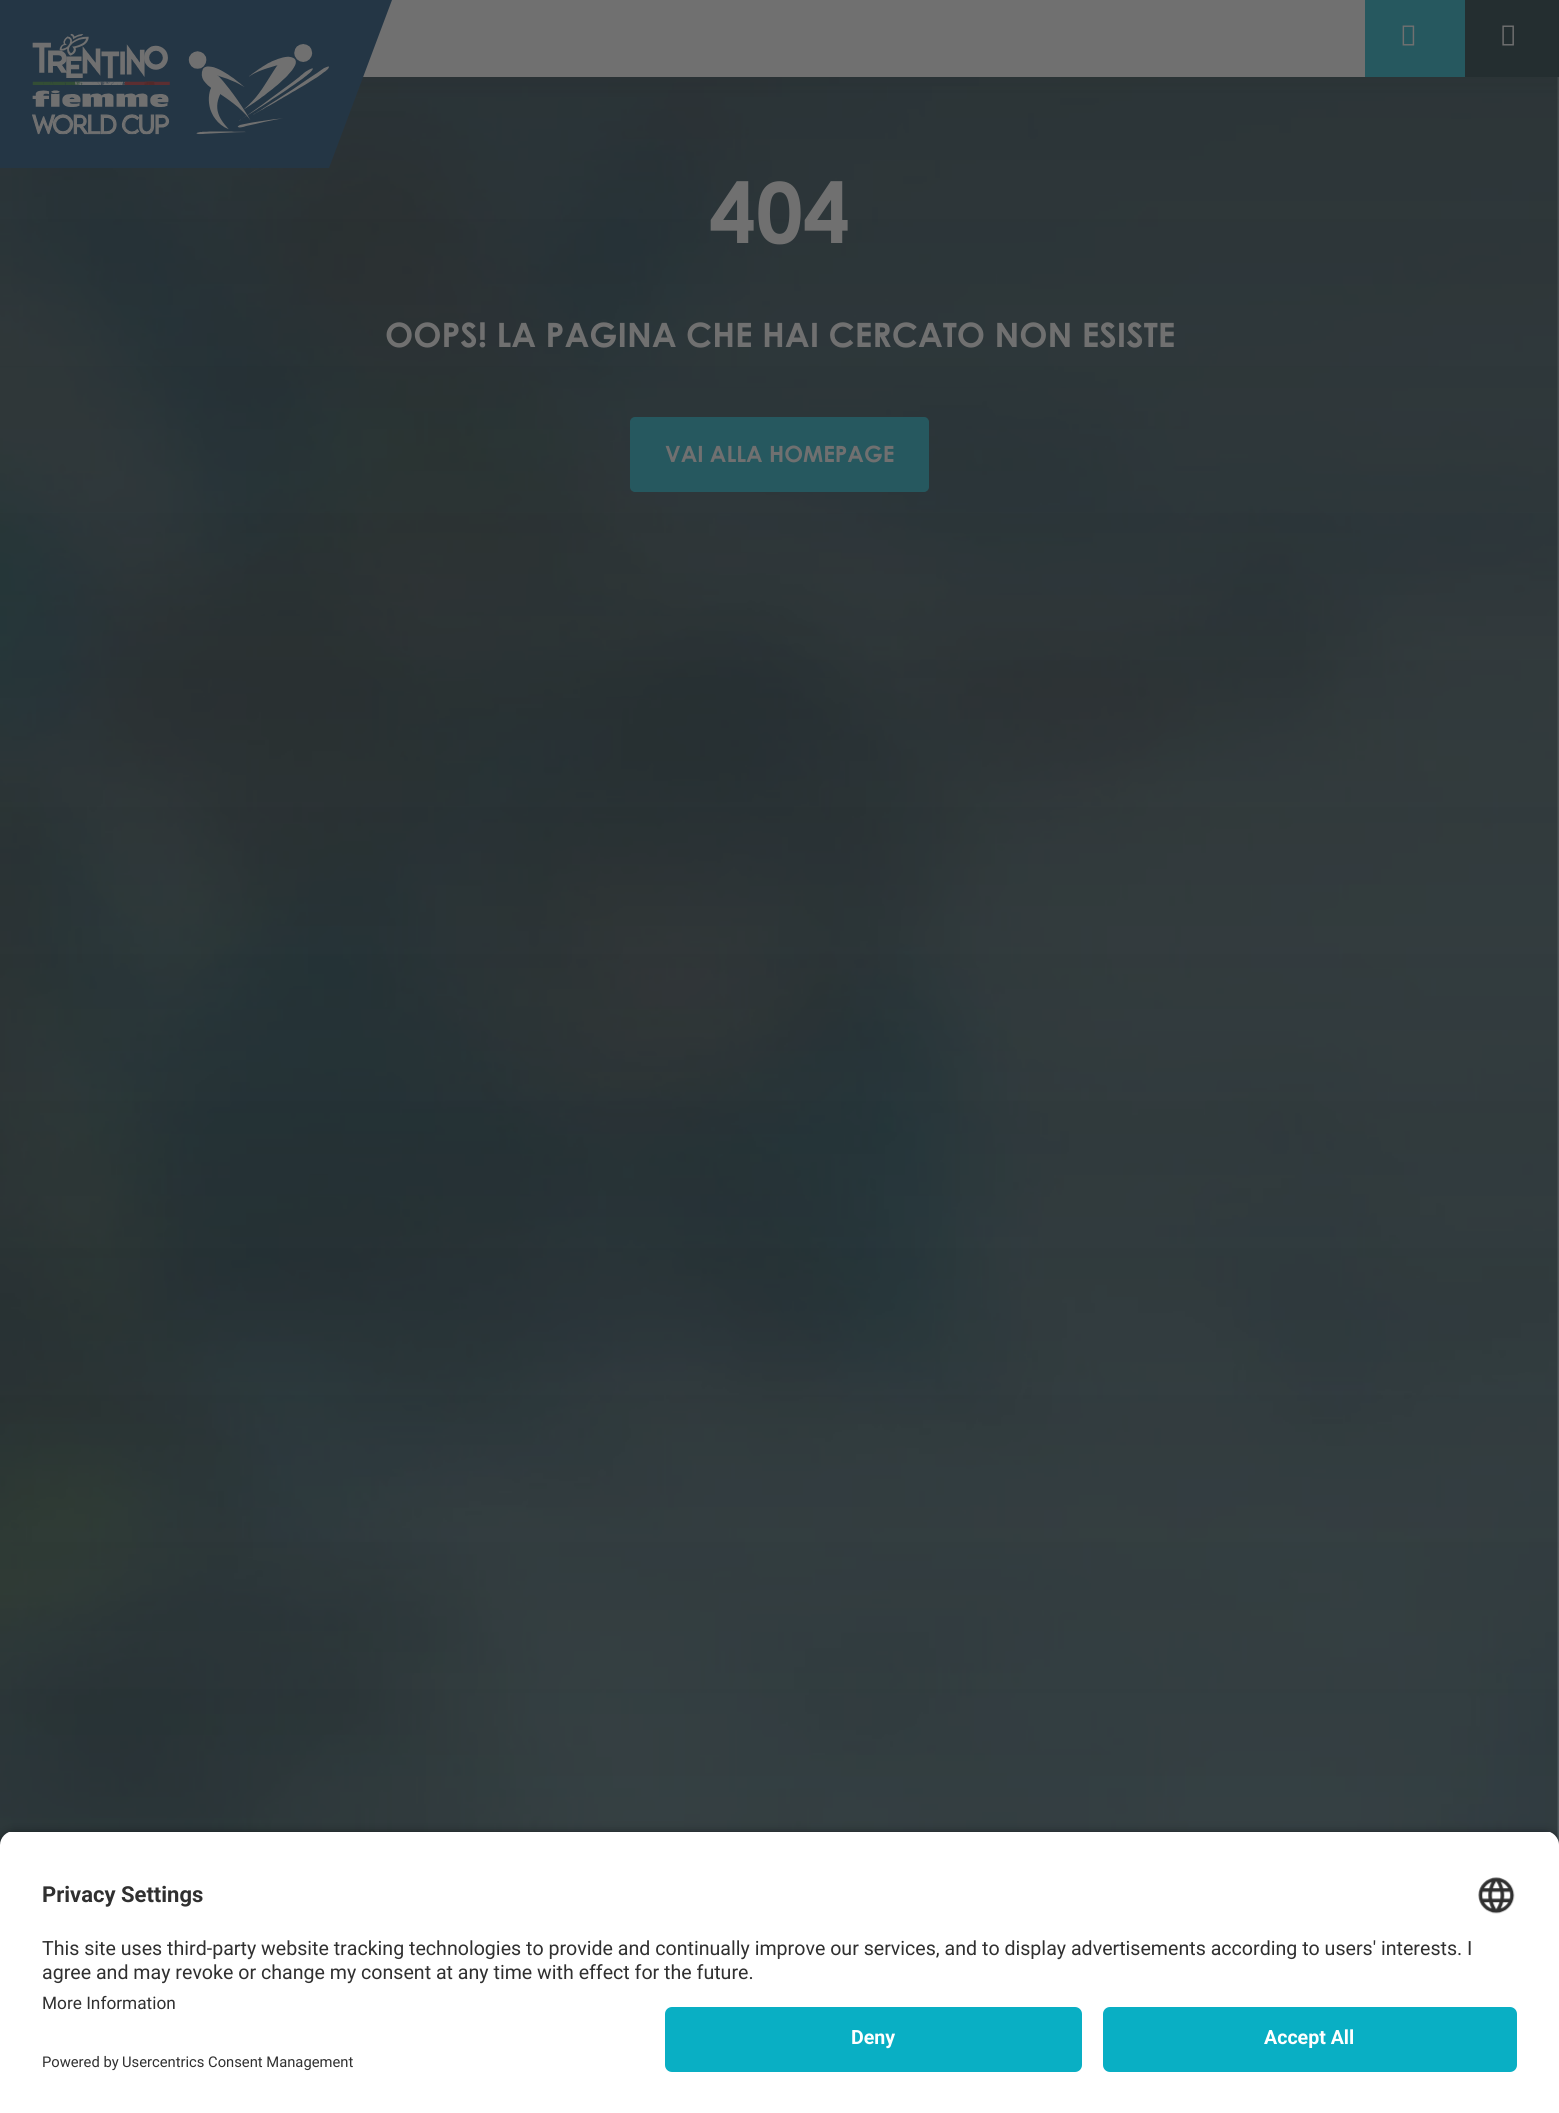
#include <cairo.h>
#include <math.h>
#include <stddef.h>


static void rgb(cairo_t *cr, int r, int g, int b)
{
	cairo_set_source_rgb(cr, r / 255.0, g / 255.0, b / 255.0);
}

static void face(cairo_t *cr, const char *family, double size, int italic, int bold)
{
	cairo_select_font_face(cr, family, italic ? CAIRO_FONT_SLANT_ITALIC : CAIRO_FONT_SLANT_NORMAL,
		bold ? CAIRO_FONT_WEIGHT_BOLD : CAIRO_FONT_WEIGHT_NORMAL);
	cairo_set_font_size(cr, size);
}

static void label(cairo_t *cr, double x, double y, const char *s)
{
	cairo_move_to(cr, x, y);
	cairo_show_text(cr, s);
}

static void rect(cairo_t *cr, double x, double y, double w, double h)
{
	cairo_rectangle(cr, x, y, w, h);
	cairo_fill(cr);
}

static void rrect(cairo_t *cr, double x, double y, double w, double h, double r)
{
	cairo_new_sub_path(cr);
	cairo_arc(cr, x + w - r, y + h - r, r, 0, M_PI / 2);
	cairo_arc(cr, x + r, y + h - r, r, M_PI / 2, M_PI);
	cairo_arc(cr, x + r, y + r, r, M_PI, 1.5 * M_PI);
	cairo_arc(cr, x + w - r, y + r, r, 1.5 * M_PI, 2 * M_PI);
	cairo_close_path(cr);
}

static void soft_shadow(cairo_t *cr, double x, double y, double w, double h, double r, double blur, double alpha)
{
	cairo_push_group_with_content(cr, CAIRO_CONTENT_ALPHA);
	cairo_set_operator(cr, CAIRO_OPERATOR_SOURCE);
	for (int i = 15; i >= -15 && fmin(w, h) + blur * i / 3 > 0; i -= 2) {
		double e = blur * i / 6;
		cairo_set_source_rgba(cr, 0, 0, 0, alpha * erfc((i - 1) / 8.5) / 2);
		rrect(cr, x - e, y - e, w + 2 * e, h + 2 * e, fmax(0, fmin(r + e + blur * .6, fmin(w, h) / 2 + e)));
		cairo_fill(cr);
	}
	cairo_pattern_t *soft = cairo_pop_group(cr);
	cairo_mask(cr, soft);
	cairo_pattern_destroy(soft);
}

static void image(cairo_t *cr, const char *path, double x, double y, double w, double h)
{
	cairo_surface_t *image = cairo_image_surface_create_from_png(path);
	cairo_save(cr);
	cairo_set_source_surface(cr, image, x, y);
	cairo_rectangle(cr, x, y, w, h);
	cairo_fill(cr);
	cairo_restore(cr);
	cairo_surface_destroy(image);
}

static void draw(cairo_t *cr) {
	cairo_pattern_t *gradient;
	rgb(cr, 255, 255, 255);
	cairo_paint(cr);
	image(cr, "image3.png", 0, 77, 1559, 1768);
	gradient = cairo_pattern_create_linear(780, -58, 780, 2056);
	cairo_pattern_add_color_stop_rgba(gradient, 0, 0.141, 0.141, 0.141, 0.4);
	cairo_pattern_add_color_stop_rgba(gradient, 1, 0.141, 0.141, 0.141, 0);
	cairo_set_source(cr, gradient);
	cairo_pattern_destroy(gradient);
	rect(cr, 0, 77, 1559, 1768);
	rgb(cr, 36, 36, 36);
	soft_shadow(cr, 0, 11, 1559, 77, 0, 10.5, 0.1);
	rgb(cr, 112, 112, 112);
	rect(cr, 363, 0, 1002, 77);
	rgb(cr, 36, 54, 69);
	rect(cr, 0, 0, 329, 168);
	image(cr, "image0.png", 32, 33, 297, 102);
	cairo_new_path(cr);
	cairo_move_to(cr, 329, 0);
	cairo_line_to(cr, 392, 0);
	cairo_line_to(cr, 329, 168);
	cairo_close_path(cr);
	cairo_fill(cr);
	rgb(cr, 38, 88, 95);
	rect(cr, 1365, 0, 100, 77);
	image(cr, "image1.png", 1402, 25, 13, 21);
	rgb(cr, 36, 46, 48);
	rect(cr, 1465, 0, 94, 77);
	image(cr, "image2.png", 1502, 25, 12, 21);
	face(cr, "Century Gothic", 84, 0, 1);
	rgb(cr, 112, 112, 112);
	label(cr, 709, 243, "404");
	face(cr, "Century Gothic", 33.6, 0, 1);
	label(cr, 385, 347, "OOPS! LA PAGINA CHE HAI CERCATO NON ESISTE");
	rgb(cr, 38, 88, 95);
	rrect(cr, 631, 418, 297, 73, 4);
	cairo_fill_preserve(cr);
	cairo_stroke(cr);
	face(cr, "Century Gothic", 22.4, 0, 1);
	rgb(cr, 112, 112, 112);
	label(cr, 665, 462, "VAI ALLA HOMEPAGE");
	rgb(cr, 0, 0, 0);
	soft_shadow(cr, 0, 1836, 1559, 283, 14, 6, 0.8);
	cairo_save(cr);
	cairo_new_path(cr);
	cairo_move_to(cr, 14, 1831);
	cairo_line_to(cr, 1545, 1831);
	cairo_curve_to(cr, 1552.5, 1831, 1559, 1837.5, 1559, 1845);
	cairo_line_to(cr, 1559, 1993);
	cairo_line_to(cr, 0, 1993);
	cairo_line_to(cr, 0, 1845);
	cairo_curve_to(cr, 0, 1837.5, 6.5, 1831, 14, 1831);
	cairo_close_path(cr);
	cairo_clip(cr);
	rgb(cr, 255, 255, 255);
	rect(cr, 0, 1832, 1559, 161);
	cairo_restore(cr);
	face(cr, "Roboto", 22, 0, 1);
	rgb(cr, 48, 48, 48);
	label(cr, 42, 1902, "Privacy Settings");
	image(cr, "image4.png", 1478, 1877, 37, 37);
	face(cr, "Roboto", 19.6, 0, 0);
	label(cr, 42, 1955, "This site uses third-party website tracking technologies to provide and continually improve our services, and to display advertisements according to users' interests. I");
	label(cr, 42, 1979, "agree and may revoke or change my consent at any time with effect for the future.");
	rgb(cr, 255, 255, 255);
	rect(cr, 0, 1993, 1559, 120);
	face(cr, "Roboto", 17.25, 0, 0);
	rgb(cr, 48, 48, 48);
	label(cr, 42, 2009, "More Information");
	face(cr, "Roboto", 14.75, 0, 0);
	label(cr, 42, 2067, "Powered by");
	label(cr, 122, 2067, "Usercentrics Consent Management");
	rgb(cr, 9, 175, 196);
	rrect(cr, 665, 2007, 417, 65, 7);
	cairo_fill(cr);
	face(cr, "Roboto", 19.6, 0, 1);
	rgb(cr, 255, 255, 255);
	label(cr, 851, 2044, "Deny");
	rgb(cr, 9, 175, 196);
	rrect(cr, 1103, 2007, 414, 65, 7);
	cairo_fill(cr);
	rgb(cr, 255, 255, 255);
	label(cr, 1264, 2044, "Accept All");
}

int main(void) {
	cairo_surface_t *surface = cairo_image_surface_create(CAIRO_FORMAT_RGB24, 1559, 2113);
	cairo_t *cr = cairo_create(surface);
	cairo_font_options_t *options = cairo_font_options_create();
	cairo_font_options_set_hint_metrics(options, CAIRO_HINT_METRICS_OFF);
	cairo_font_options_set_hint_style(options, CAIRO_HINT_STYLE_NONE);
	cairo_set_font_options(cr, options);
	cairo_set_miter_limit(cr, 4);
	draw(cr);
	cairo_surface_write_to_png(surface, "render.png");
	cairo_font_options_destroy(options);
	cairo_destroy(cr);
	cairo_surface_destroy(surface);
	return 0;
}
